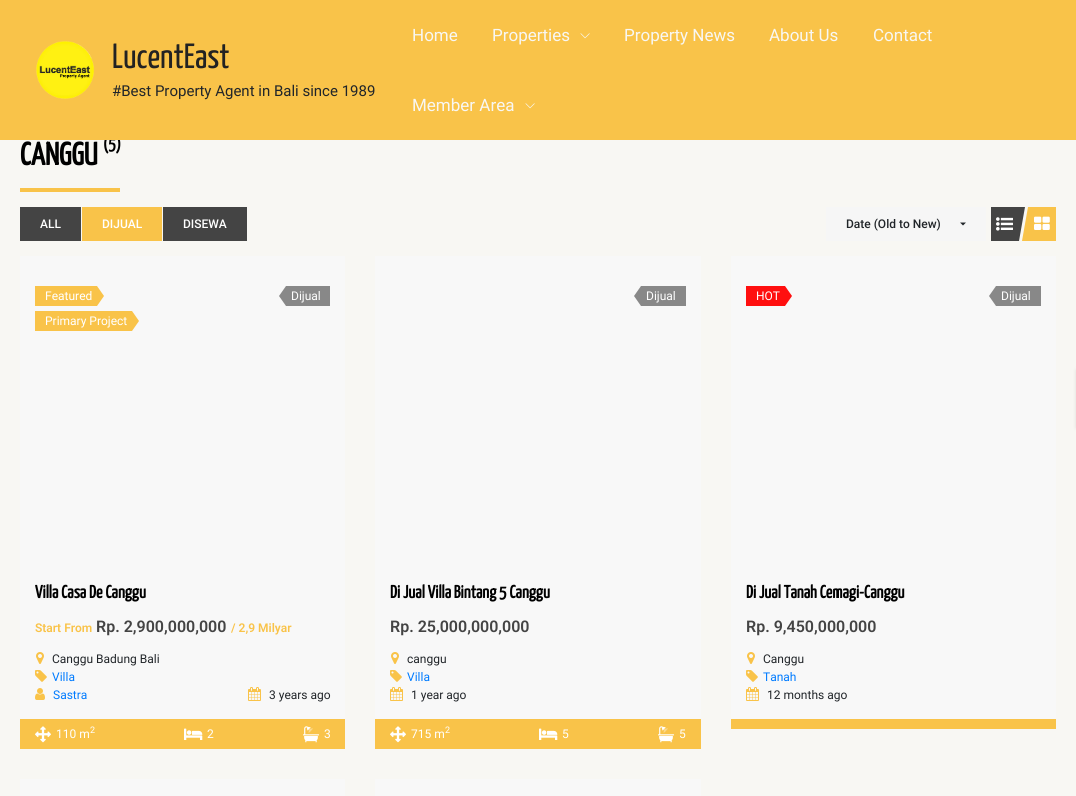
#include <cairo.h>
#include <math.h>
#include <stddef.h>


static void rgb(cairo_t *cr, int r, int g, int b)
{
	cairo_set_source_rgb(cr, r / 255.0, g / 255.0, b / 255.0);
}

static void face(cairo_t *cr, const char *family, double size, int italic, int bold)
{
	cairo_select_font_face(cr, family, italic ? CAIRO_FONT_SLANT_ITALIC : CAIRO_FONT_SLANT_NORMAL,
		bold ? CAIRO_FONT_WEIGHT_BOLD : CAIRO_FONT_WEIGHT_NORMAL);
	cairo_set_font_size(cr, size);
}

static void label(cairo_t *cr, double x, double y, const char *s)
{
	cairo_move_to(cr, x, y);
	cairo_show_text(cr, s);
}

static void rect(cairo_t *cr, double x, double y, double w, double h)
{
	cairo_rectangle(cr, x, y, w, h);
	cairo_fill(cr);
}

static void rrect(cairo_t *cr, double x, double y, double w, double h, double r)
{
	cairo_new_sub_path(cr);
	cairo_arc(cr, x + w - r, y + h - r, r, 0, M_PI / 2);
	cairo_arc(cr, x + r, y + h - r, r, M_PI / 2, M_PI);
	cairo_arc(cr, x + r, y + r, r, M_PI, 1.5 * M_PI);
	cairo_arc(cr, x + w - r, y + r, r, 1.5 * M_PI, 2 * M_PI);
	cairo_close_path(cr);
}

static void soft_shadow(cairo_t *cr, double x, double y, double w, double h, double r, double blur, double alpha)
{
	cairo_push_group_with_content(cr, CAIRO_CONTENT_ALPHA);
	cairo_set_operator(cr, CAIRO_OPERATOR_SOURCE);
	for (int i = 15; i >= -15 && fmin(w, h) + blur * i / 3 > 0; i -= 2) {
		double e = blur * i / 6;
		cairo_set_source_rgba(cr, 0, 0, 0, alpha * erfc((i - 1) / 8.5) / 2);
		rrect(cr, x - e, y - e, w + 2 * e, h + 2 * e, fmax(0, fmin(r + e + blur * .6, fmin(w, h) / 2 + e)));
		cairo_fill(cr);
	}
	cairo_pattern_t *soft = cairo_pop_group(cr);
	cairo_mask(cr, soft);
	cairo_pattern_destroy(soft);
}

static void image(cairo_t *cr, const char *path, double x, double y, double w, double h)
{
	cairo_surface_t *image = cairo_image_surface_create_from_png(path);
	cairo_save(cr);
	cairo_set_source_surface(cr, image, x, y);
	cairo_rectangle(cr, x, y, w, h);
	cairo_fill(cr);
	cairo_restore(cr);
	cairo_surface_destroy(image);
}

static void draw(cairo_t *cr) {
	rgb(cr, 248, 247, 243);
	cairo_paint(cr);
	face(cr, "Yanone Kaffeesatz", 18, 0, 1);
	rgb(cr, 0, 0, 0);
	label(cr, 103, 150, "(5)");
	rgb(cr, 249, 195, 73);
	rect(cr, 0, 0, 1076, 140);
	image(cr, "image0.png", 36, 41, 58, 58);
	face(cr, "Yanone Kaffeesatz ExtraLight", 35, 0, 0);
	rgb(cr, 34, 34, 34);
	label(cr, 112, 68, "LucentEast");
	face(cr, "Roboto", 15, 0, 0);
	rgb(cr, 33, 37, 41);
	label(cr, 112, 96, "#Best Property Agent in Bali since 1989");
	face(cr, "Roboto", 17, 0, 0);
	rgb(cr, 248, 247, 243);
	label(cr, 412, 41, "Home");
	label(cr, 492, 41, "Properties");
	image(cr, "image1.png", 580, 33, 10, 6);
	label(cr, 624, 41, "Property News");
	label(cr, 769, 41, "About Us");
	label(cr, 873, 41, "Contact");
	label(cr, 412, 111, "Member Area");
	image(cr, "image1.png", 525, 103, 10, 6);
	face(cr, "Yanone Kaffeesatz", 32, 0, 1);
	rgb(cr, 0, 0, 0);
	label(cr, 20, 165, "CANGGU");
	rgb(cr, 249, 195, 73);
	rect(cr, 20, 188, 100, 4);
	rgb(cr, 68, 68, 68);
	rect(cr, 20, 207, 61, 34);
	face(cr, "Roboto Medium", 12, 0, 0);
	rgb(cr, 255, 255, 255);
	label(cr, 40, 228, "ALL");
	rgb(cr, 249, 195, 73);
	rect(cr, 82, 207, 80, 34);
	rgb(cr, 255, 255, 255);
	label(cr, 102, 228, "DIJUAL");
	rgb(cr, 68, 68, 68);
	rect(cr, 163, 207, 84, 34);
	rgb(cr, 255, 255, 255);
	label(cr, 183, 228, "DISEWA");
	rgb(cr, 246, 246, 246);
	rect(cr, 826, 207, 160, 34);
	rgb(cr, 33, 37, 41);
	label(cr, 846, 228, "Date (Old to New)");
	cairo_new_path(cr);
	cairo_move_to(cr, 960, 222.5);
	cairo_line_to(cr, 966, 222.5);
	cairo_line_to(cr, 963, 225.5);
	cairo_close_path(cr);
	cairo_fill(cr);
	rgb(cr, 68, 68, 68);
	rect(cr, 991, 207, 28, 34);
	image(cr, "image2.png", 996, 217, 17, 14);
	cairo_new_path(cr);
	cairo_move_to(cr, 1019, 207);
	cairo_line_to(cr, 1025, 207);
	cairo_line_to(cr, 1019, 241);
	cairo_close_path(cr);
	cairo_fill(cr);
	rgb(cr, 249, 195, 73);
	rect(cr, 1028, 207, 28, 34);
	cairo_new_path(cr);
	cairo_move_to(cr, 1028, 241);
	cairo_line_to(cr, 1022, 241);
	cairo_line_to(cr, 1028, 207);
	cairo_close_path(cr);
	cairo_fill(cr);
	image(cr, "image3.png", 1034, 216, 16, 14);
	rgb(cr, 248, 248, 248);
	rect(cr, 20, 256, 325, 463);
	rgb(cr, 249, 195, 73);
	rect(cr, 35, 286, 62, 20);
	face(cr, "Roboto", 12, 0, 0);
	rgb(cr, 255, 255, 255);
	label(cr, 45, 300, "Featured");
	rgb(cr, 249, 195, 73);
	cairo_new_path(cr);
	cairo_move_to(cr, 97, 306);
	cairo_line_to(cr, 97, 286);
	cairo_line_to(cr, 104, 296);
	cairo_close_path(cr);
	cairo_fill(cr);
	rect(cr, 35, 311, 97, 20);
	rgb(cr, 255, 255, 255);
	label(cr, 45, 325, "Primary Project");
	rgb(cr, 249, 195, 73);
	cairo_new_path(cr);
	cairo_move_to(cr, 132, 331);
	cairo_line_to(cr, 132, 311);
	cairo_line_to(cr, 139, 321);
	cairo_close_path(cr);
	cairo_fill(cr);
	rgb(cr, 136, 136, 136);
	rect(cr, 286, 286, 44, 20);
	cairo_new_path(cr);
	cairo_move_to(cr, 286, 286);
	cairo_line_to(cr, 286, 306);
	cairo_line_to(cr, 279, 296);
	cairo_close_path(cr);
	cairo_fill(cr);
	rgb(cr, 255, 255, 255);
	label(cr, 291, 300, "Dijual");
	face(cr, "Yanone Kaffeesatz", 18, 0, 1);
	rgb(cr, 0, 0, 0);
	label(cr, 35, 598, "Villa Casa De Canggu");
	face(cr, "Roboto SemiBold", 12, 0, 0);
	rgb(cr, 249, 195, 73);
	label(cr, 35, 632, "Start From");
	face(cr, "Roboto SemiBold", 16, 0, 0);
	rgb(cr, 68, 68, 68);
	label(cr, 96, 632, "Rp. 2,900,000,000");
	face(cr, "Roboto SemiBold", 12, 0, 0);
	rgb(cr, 249, 195, 73);
	label(cr, 231, 632, "/ 2,9 Milyar");
	image(cr, "image4.png", 36, 652, 8, 12);
	face(cr, "Roboto", 12, 0, 0);
	rgb(cr, 33, 37, 41);
	label(cr, 52, 663, "Canggu Badung Bali");
	image(cr, "image5.png", 35, 670, 12, 12);
	rgb(cr, 0, 123, 255);
	label(cr, 52, 681, "Villa");
	image(cr, "image6.png", 35, 688, 10, 12);
	label(cr, 53, 699, "Sastra");
	image(cr, "image7.png", 248, 687, 13, 14);
	rgb(cr, 33, 37, 41);
	label(cr, 269, 699, "3 years ago");
	rgb(cr, 249, 195, 73);
	rect(cr, 20, 719, 325, 30);
	image(cr, "image8.png", 35, 726, 16, 17);
	rgb(cr, 255, 255, 255);
	label(cr, 56, 738, "110 m");
	face(cr, "Roboto", 9, 0, 0);
	label(cr, 90, 733, "2");
	image(cr, "image9.png", 184, 728, 19, 12);
	face(cr, "Roboto", 12, 0, 0);
	label(cr, 207, 738, "2");
	image(cr, "image10.png", 303, 726, 16, 17);
	label(cr, 324, 738, "3");
	rgb(cr, 248, 248, 248);
	rect(cr, 375, 256, 326, 463);
	rgb(cr, 136, 136, 136);
	rect(cr, 641, 286, 45, 20);
	cairo_new_path(cr);
	cairo_move_to(cr, 641, 286);
	cairo_line_to(cr, 641, 306);
	cairo_line_to(cr, 634, 296);
	cairo_close_path(cr);
	cairo_fill(cr);
	rgb(cr, 255, 255, 255);
	label(cr, 646, 300, "Dijual");
	face(cr, "Yanone Kaffeesatz", 18, 0, 1);
	rgb(cr, 0, 0, 0);
	label(cr, 390, 598, "Di Jual Villa Bintang 5 Canggu");
	face(cr, "Roboto SemiBold", 16, 0, 0);
	rgb(cr, 68, 68, 68);
	label(cr, 390, 632, "Rp. 25,000,000,000");
	image(cr, "image4.png", 391, 652, 8, 12);
	face(cr, "Roboto", 12, 0, 0);
	rgb(cr, 33, 37, 41);
	label(cr, 407, 663, "canggu");
	image(cr, "image5.png", 390, 670, 12, 12);
	rgb(cr, 0, 123, 255);
	label(cr, 407, 681, "Villa");
	image(cr, "image7.png", 390, 687, 13, 14);
	rgb(cr, 33, 37, 41);
	label(cr, 411, 699, "1 year ago");
	rgb(cr, 249, 195, 73);
	rect(cr, 375, 719, 326, 30);
	image(cr, "image8.png", 390, 726, 16, 17);
	rgb(cr, 255, 255, 255);
	label(cr, 411, 738, "715 m");
	face(cr, "Roboto", 9, 0, 0);
	label(cr, 445, 733, "2");
	image(cr, "image9.png", 539, 728, 19, 12);
	face(cr, "Roboto", 12, 0, 0);
	label(cr, 562, 738, "5");
	image(cr, "image10.png", 658, 726, 16, 17);
	label(cr, 679, 738, "5");
	rgb(cr, 248, 248, 248);
	rect(cr, 731, 256, 325, 463);
	rgb(cr, 255, 15, 15);
	rect(cr, 746, 286, 39, 20);
	rgb(cr, 255, 255, 255);
	label(cr, 756, 300, "HOT");
	rgb(cr, 255, 15, 15);
	cairo_new_path(cr);
	cairo_move_to(cr, 785, 306);
	cairo_line_to(cr, 785, 286);
	cairo_line_to(cr, 792, 296);
	cairo_close_path(cr);
	cairo_fill(cr);
	rgb(cr, 136, 136, 136);
	rect(cr, 996, 286, 45, 20);
	cairo_new_path(cr);
	cairo_move_to(cr, 996, 286);
	cairo_line_to(cr, 996, 306);
	cairo_line_to(cr, 989, 296);
	cairo_close_path(cr);
	cairo_fill(cr);
	rgb(cr, 255, 255, 255);
	label(cr, 1001, 300, "Dijual");
	face(cr, "Yanone Kaffeesatz", 18, 0, 1);
	rgb(cr, 0, 0, 0);
	label(cr, 746, 598, "Di Jual Tanah Cemagi-Canggu");
	face(cr, "Roboto SemiBold", 16, 0, 0);
	rgb(cr, 68, 68, 68);
	label(cr, 746, 632, "Rp. 9,450,000,000");
	image(cr, "image4.png", 747, 652, 8, 12);
	face(cr, "Roboto", 12, 0, 0);
	rgb(cr, 33, 37, 41);
	label(cr, 763, 663, "Canggu");
	image(cr, "image5.png", 746, 670, 12, 12);
	rgb(cr, 0, 123, 255);
	label(cr, 763, 681, "Tanah");
	image(cr, "image7.png", 746, 687, 13, 14);
	rgb(cr, 33, 37, 41);
	label(cr, 767, 699, "12 months ago");
	rgb(cr, 249, 195, 73);
	rect(cr, 731, 719, 325, 10);
	rgb(cr, 248, 248, 248);
	rect(cr, 20, 779, 325, 17);
	rect(cr, 375, 779, 326, 17);
	rgb(cr, 119, 119, 119);
	soft_shadow(cr, 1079, 371, 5, 56, 0, 2.5, 1);
}

int main(void) {
	cairo_surface_t *surface = cairo_image_surface_create(CAIRO_FORMAT_RGB24, 1076, 796);
	cairo_t *cr = cairo_create(surface);
	cairo_font_options_t *options = cairo_font_options_create();
	cairo_font_options_set_hint_metrics(options, CAIRO_HINT_METRICS_OFF);
	cairo_font_options_set_hint_style(options, CAIRO_HINT_STYLE_NONE);
	cairo_set_font_options(cr, options);
	cairo_set_miter_limit(cr, 4);
	draw(cr);
	cairo_surface_write_to_png(surface, "render.png");
	cairo_font_options_destroy(options);
	cairo_destroy(cr);
	cairo_surface_destroy(surface);
	return 0;
}
